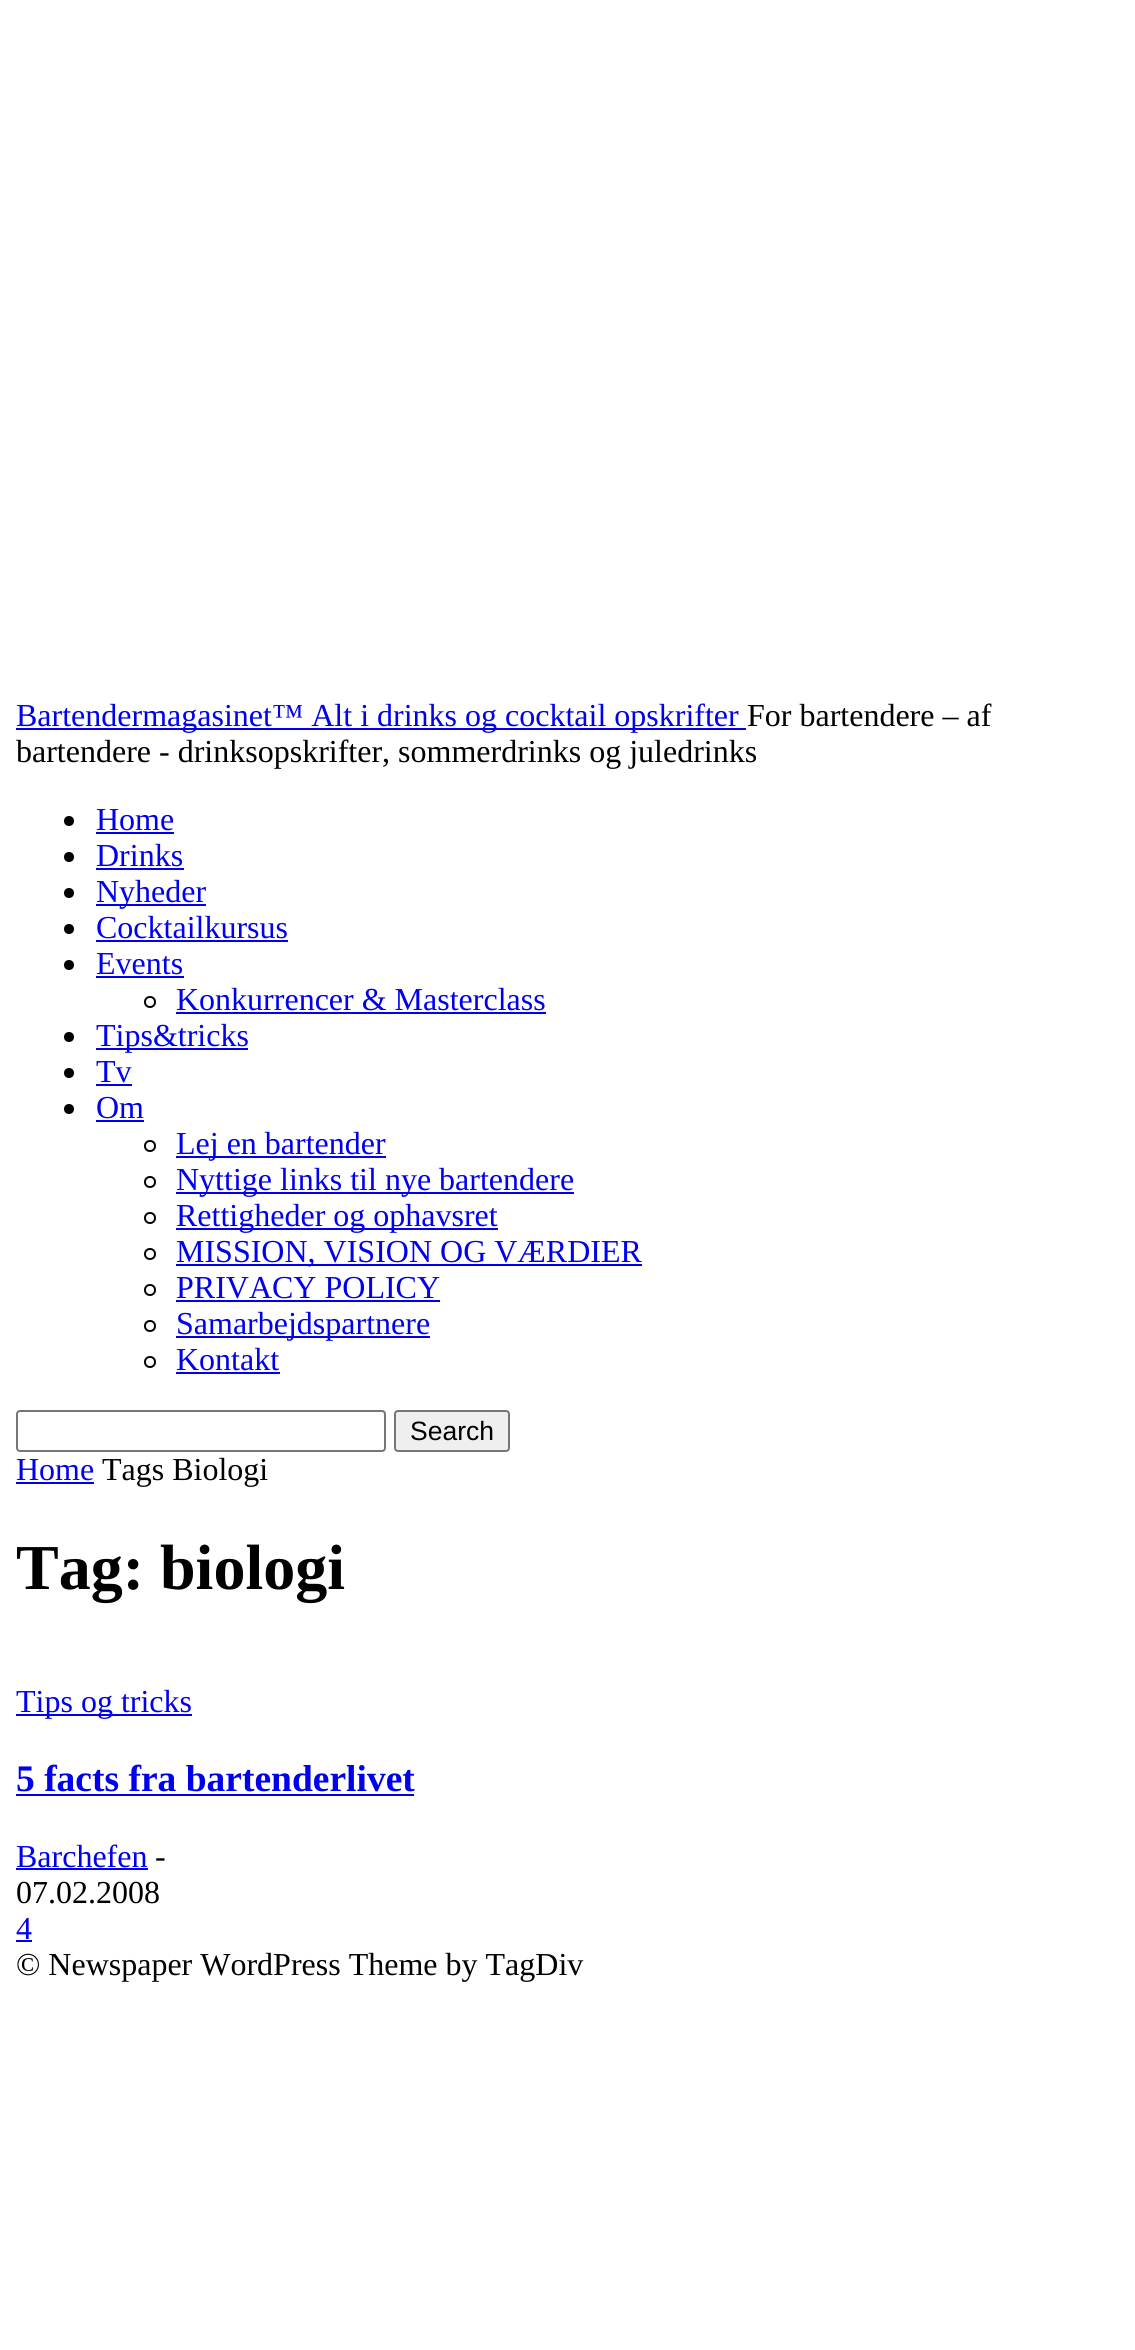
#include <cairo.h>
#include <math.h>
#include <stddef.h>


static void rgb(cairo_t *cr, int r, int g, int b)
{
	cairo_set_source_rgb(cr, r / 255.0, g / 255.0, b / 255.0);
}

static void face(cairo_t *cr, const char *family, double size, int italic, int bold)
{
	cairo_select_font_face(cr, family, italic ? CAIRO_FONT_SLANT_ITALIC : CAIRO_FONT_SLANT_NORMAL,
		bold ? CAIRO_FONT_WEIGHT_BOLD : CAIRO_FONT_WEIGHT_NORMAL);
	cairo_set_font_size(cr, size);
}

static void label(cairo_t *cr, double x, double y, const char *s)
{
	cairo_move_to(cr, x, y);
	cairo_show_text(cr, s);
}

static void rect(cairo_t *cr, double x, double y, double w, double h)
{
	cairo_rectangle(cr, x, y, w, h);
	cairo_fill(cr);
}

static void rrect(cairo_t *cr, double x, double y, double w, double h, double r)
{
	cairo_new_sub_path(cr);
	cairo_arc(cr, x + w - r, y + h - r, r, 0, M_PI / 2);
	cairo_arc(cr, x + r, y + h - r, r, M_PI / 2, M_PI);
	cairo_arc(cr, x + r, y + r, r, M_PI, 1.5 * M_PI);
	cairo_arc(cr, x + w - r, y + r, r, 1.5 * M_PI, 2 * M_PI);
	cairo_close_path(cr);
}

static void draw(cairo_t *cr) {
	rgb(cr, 255, 255, 255);
	cairo_paint(cr);
	rgb(cr, 0, 0, 238);
	rect(cr, 16, 728, 722, 2);
	face(cr, "Liberation Serif", 32, 0, 0);
	label(cr, 16, 726, "Bartendermagasinet™ Alt i drinks og cocktail opskrifter");
	rect(cr, 738, 728, 8, 2);
	rgb(cr, 0, 0, 0);
	label(cr, 747, 726, "For bartendere – af");
	label(cr, 16, 762, "bartendere - drinksopskrifter, sommerdrinks og juledrinks");
	cairo_new_path(cr);
	cairo_arc(cr, 69, 821, 5, 0, 2 * M_PI);
	cairo_fill(cr);
	rgb(cr, 0, 0, 238);
	label(cr, 96, 830, "Home");
	rect(cr, 96, 832, 78, 2);
	rgb(cr, 0, 0, 0);
	cairo_new_path(cr);
	cairo_arc(cr, 69, 857, 5, 0, 2 * M_PI);
	cairo_fill(cr);
	rgb(cr, 0, 0, 238);
	label(cr, 96, 866, "Drinks");
	rect(cr, 96, 868, 88, 2);
	rgb(cr, 0, 0, 0);
	cairo_new_path(cr);
	cairo_arc(cr, 69, 893, 5, 0, 2 * M_PI);
	cairo_fill(cr);
	rgb(cr, 0, 0, 238);
	rect(cr, 96, 904, 110, 2);
	label(cr, 96, 902, "Nyheder");
	rgb(cr, 0, 0, 0);
	cairo_new_path(cr);
	cairo_arc(cr, 69, 929, 5, 0, 2 * M_PI);
	cairo_fill(cr);
	rgb(cr, 0, 0, 238);
	label(cr, 96, 938, "Cocktailkursus");
	rect(cr, 96, 940, 192, 2);
	rgb(cr, 0, 0, 0);
	cairo_new_path(cr);
	cairo_arc(cr, 69, 965, 5, 0, 2 * M_PI);
	cairo_fill(cr);
	rgb(cr, 0, 0, 238);
	label(cr, 96, 974, "Events");
	rect(cr, 96, 976, 88, 2);
	cairo_new_path(cr);
	cairo_arc(cr, 150, 1002, 5, 0, 2 * M_PI);
	rgb(cr, 0, 0, 0);
	cairo_stroke(cr);
	rgb(cr, 0, 0, 238);
	label(cr, 176, 1010, "Konkurrencer & Masterclass");
	rect(cr, 176, 1012, 370, 2);
	rgb(cr, 0, 0, 0);
	cairo_new_path(cr);
	cairo_arc(cr, 69, 1037, 5, 0, 2 * M_PI);
	cairo_fill(cr);
	rgb(cr, 0, 0, 238);
	rect(cr, 96, 1048, 152, 2);
	label(cr, 96, 1046, "Tips&tricks");
	rgb(cr, 0, 0, 0);
	cairo_new_path(cr);
	cairo_arc(cr, 69, 1073, 5, 0, 2 * M_PI);
	cairo_fill(cr);
	rgb(cr, 0, 0, 238);
	label(cr, 96, 1082, "Tv");
	rect(cr, 96, 1084, 36, 2);
	rgb(cr, 0, 0, 0);
	cairo_new_path(cr);
	cairo_arc(cr, 69, 1109, 5, 0, 2 * M_PI);
	cairo_fill(cr);
	rgb(cr, 0, 0, 238);
	label(cr, 96, 1118, "Om");
	rect(cr, 96, 1120, 48, 2);
	cairo_new_path(cr);
	cairo_arc(cr, 150, 1146, 5, 0, 2 * M_PI);
	rgb(cr, 0, 0, 0);
	cairo_stroke(cr);
	rgb(cr, 0, 0, 238);
	rect(cr, 176, 1156, 210, 2);
	label(cr, 176, 1154, "Lej en bartender");
	cairo_new_path(cr);
	cairo_arc(cr, 150, 1182, 5, 0, 2 * M_PI);
	rgb(cr, 0, 0, 0);
	cairo_stroke(cr);
	rgb(cr, 0, 0, 238);
	rect(cr, 176, 1192, 398, 2);
	label(cr, 176, 1190, "Nyttige links til nye bartendere");
	cairo_new_path(cr);
	cairo_arc(cr, 150, 1218, 5, 0, 2 * M_PI);
	rgb(cr, 0, 0, 0);
	cairo_stroke(cr);
	rgb(cr, 0, 0, 238);
	rect(cr, 176, 1228, 322, 2);
	label(cr, 176, 1226, "Rettigheder og ophavsret");
	cairo_new_path(cr);
	cairo_arc(cr, 150, 1254, 5, 0, 2 * M_PI);
	rgb(cr, 0, 0, 0);
	cairo_stroke(cr);
	rgb(cr, 0, 0, 238);
	rect(cr, 176, 1264, 466, 2);
	label(cr, 176, 1262, "MISSION, VISION OG VÆRDIER");
	cairo_new_path(cr);
	cairo_arc(cr, 150, 1290, 5, 0, 2 * M_PI);
	rgb(cr, 0, 0, 0);
	cairo_stroke(cr);
	rgb(cr, 0, 0, 238);
	label(cr, 176, 1298, "PRIVACY POLICY");
	rect(cr, 176, 1300, 264, 2);
	cairo_new_path(cr);
	cairo_arc(cr, 150, 1326, 5, 0, 2 * M_PI);
	rgb(cr, 0, 0, 0);
	cairo_stroke(cr);
	rgb(cr, 0, 0, 238);
	rect(cr, 176, 1336, 254, 2);
	label(cr, 176, 1334, "Samarbejdspartnere");
	cairo_new_path(cr);
	cairo_arc(cr, 150, 1362, 5, 0, 2 * M_PI);
	rgb(cr, 0, 0, 0);
	cairo_stroke(cr);
	rgb(cr, 0, 0, 238);
	label(cr, 176, 1370, "Kontakt");
	rect(cr, 176, 1372, 104, 2);
	rrect(cr, 17, 1411, 368, 40, 3);
	rgb(cr, 118, 118, 118);
	cairo_stroke(cr);
	rgb(cr, 239, 239, 239);
	rrect(cr, 395, 1411, 114, 40, 3);
	cairo_fill_preserve(cr);
	rgb(cr, 118, 118, 118);
	cairo_stroke(cr);
	face(cr, "Liberation Sans", 26.5, 0, 0);
	rgb(cr, 0, 0, 0);
	label(cr, 410, 1440, "Search");
	face(cr, "Liberation Serif", 32, 0, 0);
	rgb(cr, 0, 0, 238);
	label(cr, 16, 1480, "Home");
	rect(cr, 16, 1482, 78, 2);
	rgb(cr, 0, 0, 0);
	label(cr, 102, 1480, "Tags Biologi");
	face(cr, "Liberation Serif", 64, 0, 1);
	label(cr, 16, 1589, "Tag: biologi");
	rgb(cr, 0, 0, 238);
	rect(cr, 16, 1714, 176, 2);
	face(cr, "Liberation Serif", 32, 0, 0);
	label(cr, 16, 1712, "Tips og tricks");
	face(cr, "Liberation Serif", 37.5, 0, 1);
	label(cr, 16, 1791, "5 facts fra bartenderlivet");
	rect(cr, 16, 1794, 398, 2);
	face(cr, "Liberation Serif", 32, 0, 0);
	label(cr, 16, 1867, "Barchefen");
	rect(cr, 16, 1868, 132, 2);
	rgb(cr, 0, 0, 0);
	label(cr, 155, 1867, "-");
	label(cr, 16, 1903, "07.02.2008");
	rgb(cr, 0, 0, 238);
	label(cr, 16, 1939, "4");
	rect(cr, 16, 1940, 16, 2);
	rgb(cr, 0, 0, 0);
	label(cr, 16, 1975, "© Newspaper WordPress Theme by TagDiv");
}

int main(void) {
	cairo_surface_t *surface = cairo_image_surface_create(CAIRO_FORMAT_RGB24, 1135, 2350);
	cairo_t *cr = cairo_create(surface);
	cairo_font_options_t *options = cairo_font_options_create();
	cairo_font_options_set_hint_metrics(options, CAIRO_HINT_METRICS_OFF);
	cairo_font_options_set_hint_style(options, CAIRO_HINT_STYLE_NONE);
	cairo_set_font_options(cr, options);
	cairo_set_miter_limit(cr, 4);
	draw(cr);
	cairo_surface_write_to_png(surface, "render.png");
	cairo_font_options_destroy(options);
	cairo_destroy(cr);
	cairo_surface_destroy(surface);
	return 0;
}
